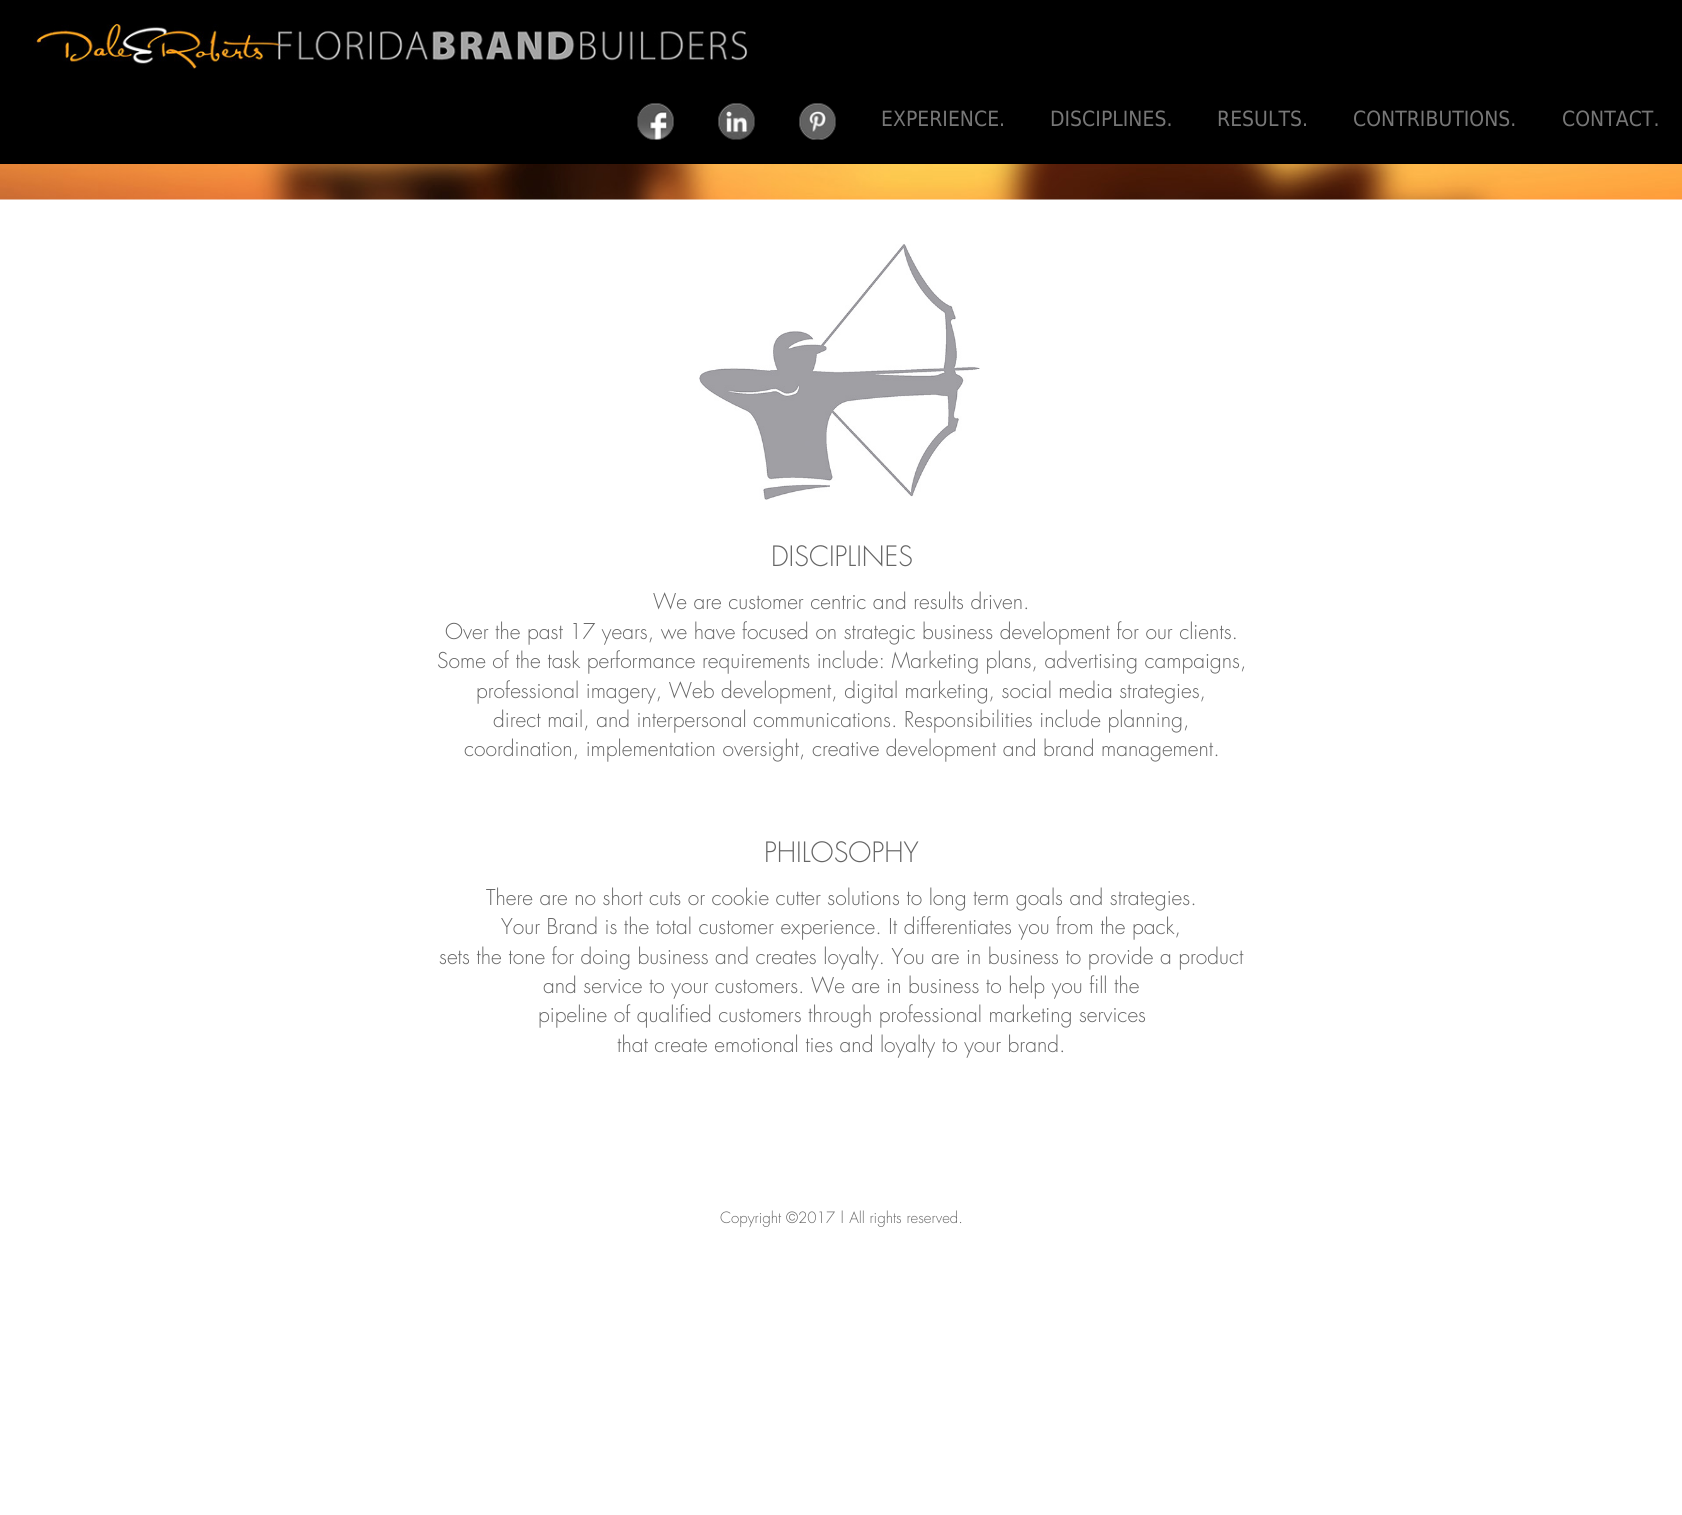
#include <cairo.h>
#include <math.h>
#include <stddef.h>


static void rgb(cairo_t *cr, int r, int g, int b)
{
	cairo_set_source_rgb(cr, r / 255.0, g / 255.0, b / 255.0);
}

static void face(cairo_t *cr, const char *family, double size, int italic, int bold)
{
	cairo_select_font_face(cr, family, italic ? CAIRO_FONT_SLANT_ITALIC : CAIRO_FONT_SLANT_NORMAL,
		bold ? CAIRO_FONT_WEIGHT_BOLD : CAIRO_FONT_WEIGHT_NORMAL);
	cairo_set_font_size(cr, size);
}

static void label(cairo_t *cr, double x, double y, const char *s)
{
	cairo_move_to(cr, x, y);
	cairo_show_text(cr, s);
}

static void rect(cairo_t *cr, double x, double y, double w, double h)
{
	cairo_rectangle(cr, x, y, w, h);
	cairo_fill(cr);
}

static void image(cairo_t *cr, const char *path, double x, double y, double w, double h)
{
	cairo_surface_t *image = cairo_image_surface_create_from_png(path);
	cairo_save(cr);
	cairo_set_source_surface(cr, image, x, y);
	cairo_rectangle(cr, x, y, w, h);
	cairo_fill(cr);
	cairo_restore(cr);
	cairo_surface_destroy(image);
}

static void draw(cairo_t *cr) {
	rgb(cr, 255, 255, 255);
	cairo_paint(cr);
	rgb(cr, 0, 0, 0);
	rect(cr, 0, 0, 1682, 164);
	image(cr, "image0.png", 33, 24, 715, 45);
	image(cr, "image1.png", 637, 103, 37, 37);
	image(cr, "image2.png", 718, 103, 37, 37);
	image(cr, "image3.png", 799, 103, 37, 37);
	face(cr, "DejaVu Sans", 21, 0, 0);
	rgb(cr, 119, 119, 119);
	label(cr, 881, 126, "EXPERIENCE.");
	label(cr, 1050, 126, "DISCIPLINES.");
	label(cr, 1217, 126, "RESULTS.");
	label(cr, 1353, 126, "CONTRIBUTIONS.");
	label(cr, 1562, 126, "CONTACT.");
	image(cr, "image4.png", 0, 164, 1682, 36);
	image(cr, "image5.png", 699, 244, 281, 256);
	face(cr, "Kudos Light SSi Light", 27, 0, 0);
	rgb(cr, 102, 102, 102);
	label(cr, 771, 566, "DISCIPLINES");
	face(cr, "Kudos Light SSi Light", 21, 0, 0);
	label(cr, 653, 609, "We are customer centric and results driven.");
	label(cr, 445, 639, "Over the past 17 years, we have focused on strategic business development for our clients.");
	label(cr, 437, 668, "Some of the task performance requirements include: Marketing plans, advertising campaigns,");
	label(cr, 476, 698, "professional imagery, Web development, digital marketing, social media strategies,");
	label(cr, 493, 727, "direct mail, and interpersonal communications. Responsibilities include planning,");
	label(cr, 464, 756, "coordination, implementation oversight, creative development and brand management.");
	face(cr, "Kudos Light SSi Light", 27, 0, 0);
	label(cr, 764, 862, "PHILOSOPHY");
	face(cr, "Kudos Light SSi Light", 21, 0, 0);
	label(cr, 486, 905, "There are no short cuts or cookie cutter solutions to long term goals and strategies.");
	label(cr, 501, 934, "Your Brand is the total customer experience. It differentiates you from the pack,");
	label(cr, 439, 964, "sets the tone for doing business and creates loyalty. You are in business to provide a product");
	label(cr, 543, 993, "and service to your customers. We are in business to help you fill the");
	label(cr, 538, 1022, "pipeline of qualified customers through professional marketing services");
	label(cr, 617, 1052, "that create emotional ties and loyalty to your brand.");
	face(cr, "Kudos Light SSi Light", 15, 0, 0);
	label(cr, 720, 1223, "Copyright ©2017 | All rights reserved.");
}

int main(void) {
	cairo_surface_t *surface = cairo_image_surface_create(CAIRO_FORMAT_RGB24, 1682, 1515);
	cairo_t *cr = cairo_create(surface);
	cairo_font_options_t *options = cairo_font_options_create();
	cairo_font_options_set_hint_metrics(options, CAIRO_HINT_METRICS_OFF);
	cairo_font_options_set_hint_style(options, CAIRO_HINT_STYLE_NONE);
	cairo_set_font_options(cr, options);
	cairo_set_miter_limit(cr, 4);
	draw(cr);
	cairo_surface_write_to_png(surface, "render.png");
	cairo_font_options_destroy(options);
	cairo_destroy(cr);
	cairo_surface_destroy(surface);
	return 0;
}
